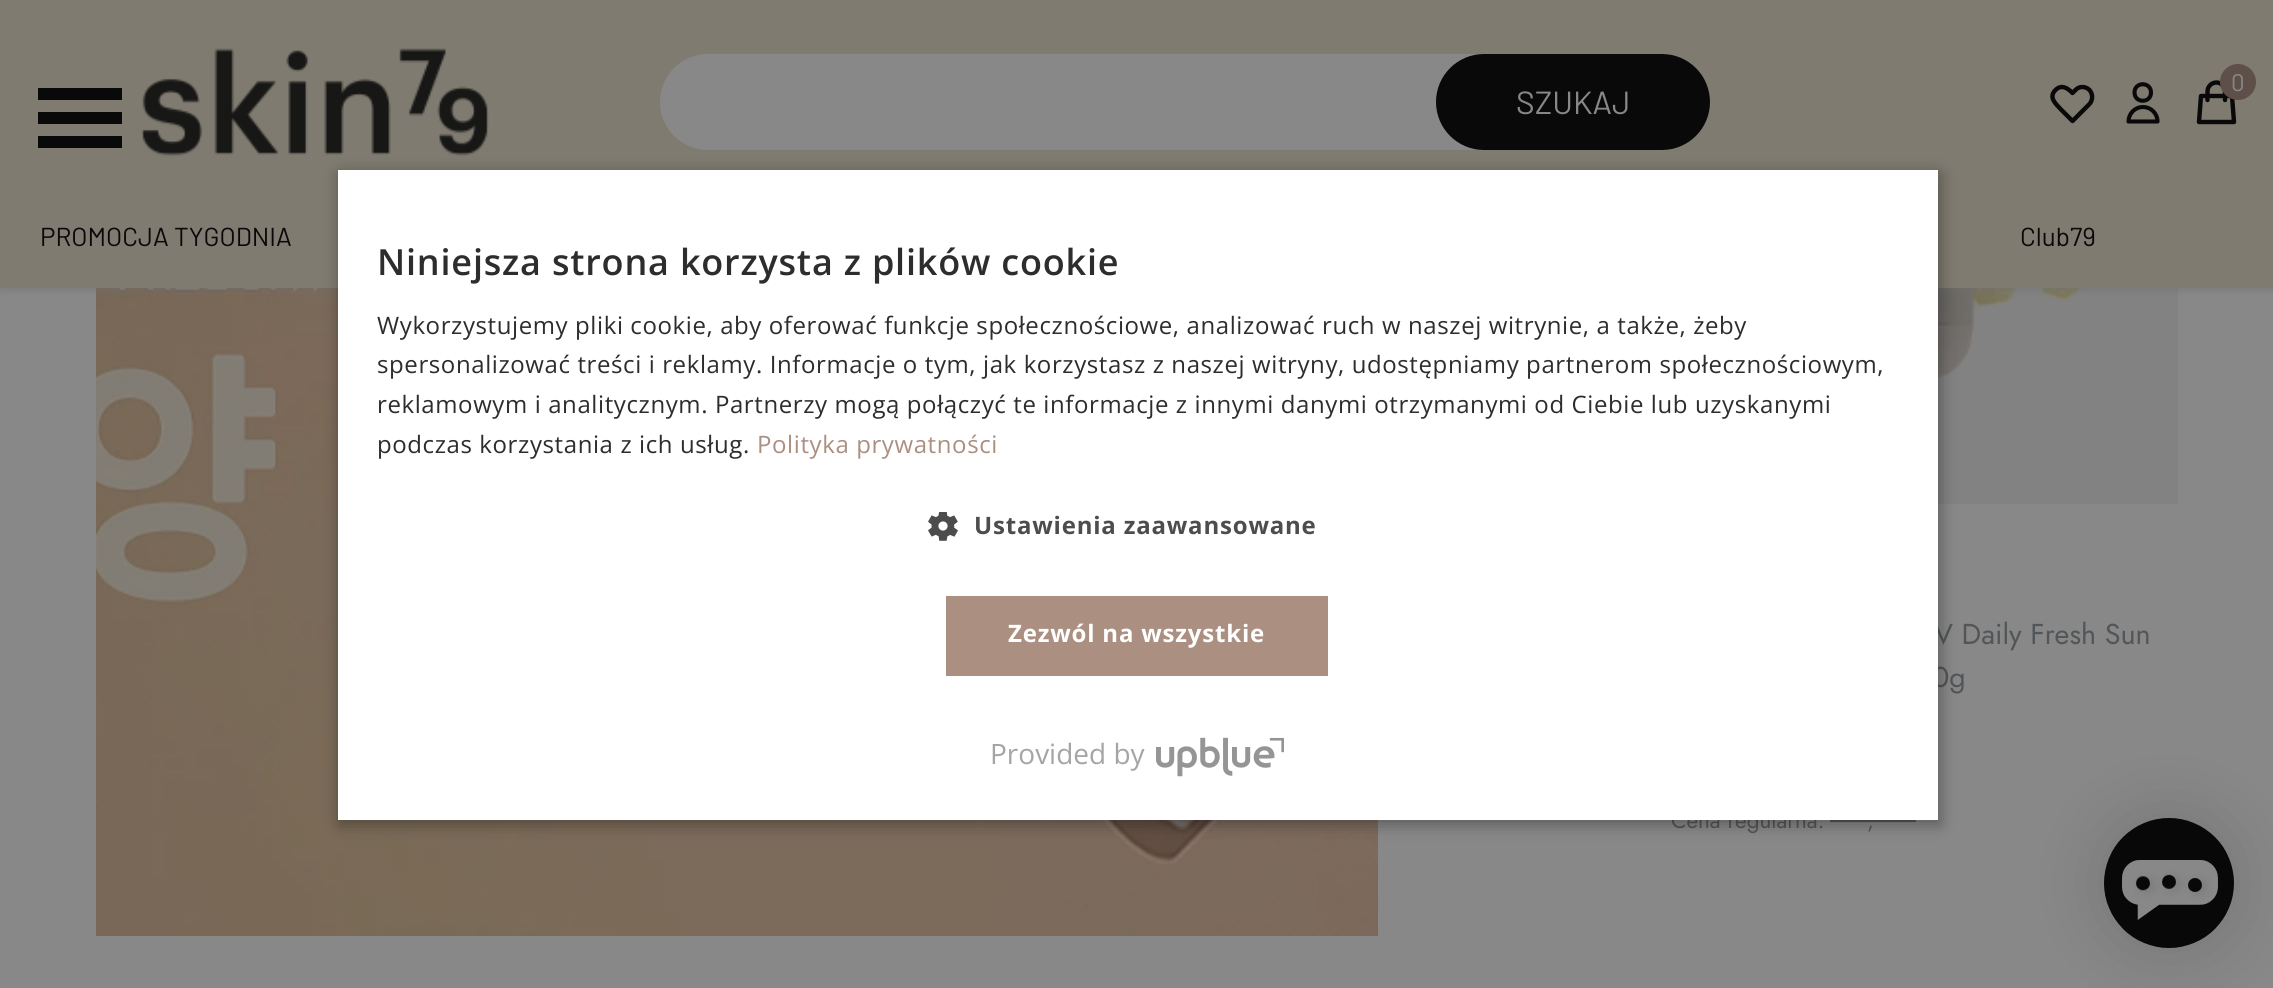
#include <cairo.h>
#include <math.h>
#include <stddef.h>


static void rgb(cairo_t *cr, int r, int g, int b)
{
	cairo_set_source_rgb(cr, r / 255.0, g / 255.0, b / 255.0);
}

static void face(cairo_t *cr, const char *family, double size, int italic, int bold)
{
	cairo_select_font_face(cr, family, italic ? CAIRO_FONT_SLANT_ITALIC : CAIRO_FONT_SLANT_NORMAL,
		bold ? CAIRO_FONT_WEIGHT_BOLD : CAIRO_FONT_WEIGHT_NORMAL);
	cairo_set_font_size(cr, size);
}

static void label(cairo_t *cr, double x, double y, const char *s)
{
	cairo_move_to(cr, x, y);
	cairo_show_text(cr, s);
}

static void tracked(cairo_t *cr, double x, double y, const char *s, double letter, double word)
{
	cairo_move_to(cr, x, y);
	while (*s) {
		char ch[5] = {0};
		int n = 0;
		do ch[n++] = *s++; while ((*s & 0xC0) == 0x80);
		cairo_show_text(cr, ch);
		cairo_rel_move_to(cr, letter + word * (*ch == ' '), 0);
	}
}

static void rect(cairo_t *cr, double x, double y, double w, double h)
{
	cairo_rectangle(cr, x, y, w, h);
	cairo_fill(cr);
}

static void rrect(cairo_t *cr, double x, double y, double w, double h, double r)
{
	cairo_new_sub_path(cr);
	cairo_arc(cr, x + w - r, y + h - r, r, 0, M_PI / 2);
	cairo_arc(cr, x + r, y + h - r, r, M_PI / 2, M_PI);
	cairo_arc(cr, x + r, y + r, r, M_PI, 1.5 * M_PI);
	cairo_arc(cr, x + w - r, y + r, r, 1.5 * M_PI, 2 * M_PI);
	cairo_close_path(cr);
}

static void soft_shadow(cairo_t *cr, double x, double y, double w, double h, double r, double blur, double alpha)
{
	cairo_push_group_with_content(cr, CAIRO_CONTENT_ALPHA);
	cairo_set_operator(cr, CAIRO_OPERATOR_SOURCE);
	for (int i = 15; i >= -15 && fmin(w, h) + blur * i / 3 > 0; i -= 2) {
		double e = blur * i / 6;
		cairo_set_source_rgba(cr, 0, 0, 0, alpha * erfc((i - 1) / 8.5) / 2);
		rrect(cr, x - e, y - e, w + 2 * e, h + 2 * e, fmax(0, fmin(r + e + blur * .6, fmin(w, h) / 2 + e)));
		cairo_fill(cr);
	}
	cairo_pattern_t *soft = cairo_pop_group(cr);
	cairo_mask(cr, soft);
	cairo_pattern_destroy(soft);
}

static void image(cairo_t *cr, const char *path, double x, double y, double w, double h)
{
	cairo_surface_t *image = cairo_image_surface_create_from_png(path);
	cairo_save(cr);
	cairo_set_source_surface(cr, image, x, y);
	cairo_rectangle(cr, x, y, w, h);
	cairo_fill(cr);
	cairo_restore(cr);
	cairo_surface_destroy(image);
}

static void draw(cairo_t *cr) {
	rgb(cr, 136, 136, 136);
	cairo_paint(cr);
	image(cr, "image1.png", 96, 288, 1282, 648);
	rgb(cr, 131, 130, 130);
	rect(cr, 1938, 288, 240, 216);
	image(cr, "image2.png", 1938, 288, 147, 93);
	rgb(cr, 111, 111, 111);
	soft_shadow(cr, 0, 2, 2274, 288, 0, 4, 0.6);
	rgb(cr, 128, 123, 112);
	rect(cr, 0, 0, 2273, 288);
	image(cr, "image0.png", 141, 48, 348, 109);
	cairo_new_path(cr);
	cairo_move_to(cr, 2055.5, 90);
	cairo_curve_to(cr, 2048, 97.5, 2056, 104, 2061, 109.5);
	cairo_line_to(cr, 2072.5, 121);
	cairo_line_to(cr, 2089.5, 104);
	cairo_curve_to(cr, 2093, 100, 2093, 94, 2089.5, 90);
	cairo_curve_to(cr, 2085.5, 86, 2079, 86, 2075.5, 90);
	cairo_line_to(cr, 2072.5, 93);
	cairo_curve_to(cr, 2067.5, 88, 2061.5, 84, 2055.5, 90);
	cairo_close_path(cr);
	rgb(cr, 9, 9, 9);
	cairo_set_line_width(cr, 4.4);
	cairo_set_line_cap(cr, CAIRO_LINE_CAP_ROUND);
	cairo_set_line_join(cr, CAIRO_LINE_JOIN_ROUND);
	cairo_stroke(cr);
	cairo_new_path(cr);
	cairo_move_to(cr, 2151, 92.5);
	cairo_curve_to(cr, 2151, 103.5, 2134.5, 103.5, 2134.5, 92.5);
	cairo_curve_to(cr, 2134.5, 81.5, 2151, 81.5, 2151, 92.5);
	cairo_close_path(cr);
	cairo_move_to(cr, 2143, 107);
	cairo_curve_to(cr, 2135, 107, 2128.5, 113.5, 2128.5, 121.5);
	cairo_line_to(cr, 2157.5, 121.5);
	cairo_curve_to(cr, 2157.5, 113.5, 2151, 107, 2143, 107);
	cairo_close_path(cr);
	cairo_set_line_width(cr, 4.1);
	cairo_stroke(cr);
	cairo_new_path(cr);
	cairo_move_to(cr, 2225, 100);
	cairo_line_to(cr, 2225, 91.5);
	cairo_curve_to(cr, 2225, 86.5, 2221, 82.5, 2216.5, 82.5);
	cairo_curve_to(cr, 2211.5, 82.5, 2207.5, 86.5, 2207.5, 91.5);
	cairo_line_to(cr, 2207.5, 100);
	cairo_move_to(cr, 2201, 96);
	cairo_line_to(cr, 2232, 96);
	cairo_line_to(cr, 2234, 122);
	cairo_line_to(cr, 2199, 122);
	cairo_close_path(cr);
	cairo_set_line_width(cr, 4.4);
	cairo_stroke(cr);
	rgb(cr, 94, 80, 73);
	cairo_arc(cr, 2238, 82, 18, 0, 2 * M_PI);
	cairo_fill(cr);
	face(cr, "Barlow", 24, 0, 0);
	rgb(cr, 136, 136, 136);
	label(cr, 2231, 91, "0");
	rgb(cr, 9, 9, 9);
	cairo_new_path(cr);
	cairo_move_to(cr, 38, 88);
	cairo_line_to(cr, 38, 100);
	cairo_line_to(cr, 122, 100);
	cairo_line_to(cr, 122, 88);
	cairo_close_path(cr);
	cairo_move_to(cr, 38, 112);
	cairo_line_to(cr, 38, 124);
	cairo_line_to(cr, 122, 124);
	cairo_line_to(cr, 122, 112);
	cairo_close_path(cr);
	cairo_move_to(cr, 38, 136);
	cairo_line_to(cr, 38, 148);
	cairo_line_to(cr, 122, 148);
	cairo_line_to(cr, 122, 136);
	cairo_close_path(cr);
	cairo_fill(cr);
	rgb(cr, 136, 136, 136);
	rrect(cr, 660, 54, 1050, 96, 48);
	cairo_fill(cr);
	rgb(cr, 9, 9, 9);
	rrect(cr, 1436, 54, 274, 96, 48);
	cairo_fill(cr);
	face(cr, "Barlow", 32, 0, 0);
	rgb(cr, 136, 136, 136);
	label(cr, 1516, 114, "SZUKAJ");
	face(cr, "Barlow", 26, 0, 0);
	rgb(cr, 9, 9, 9);
	label(cr, 40, 246, "PROMOCJA TYGODNIA");
	label(cr, 2020, 246, "Club79");
	face(cr, "Jost", 28.75, 0, 0);
	rgb(cr, 83, 86, 88);
	label(cr, 1934, 644, "V Daily Fresh Sun");
	label(cr, 1932, 687, "0g");
	face(cr, "Jost", 22.5, 0, 0);
	label(cr, 1671, 828, "Cena regularna:");
	label(cr, 1867, 828, ",");
	rect(cr, 1830, 820, 86, 2);
	rgb(cr, 0, 0, 0);
	soft_shadow(cr, 340, 174, 1600, 650, 0, 8, 0.35);
	rgb(cr, 255, 255, 255);
	rect(cr, 338, 170, 1600, 650);
	face(cr, "Open Sans SemiBold", 36, 0, 0);
	rgb(cr, 45, 45, 45);
	tracked(cr, 377, 275, "Niniejsza strona korzysta z plików cookie", 0.8, 0);
	face(cr, "Open Sans", 24, 0, 0);
	tracked(cr, 377, 334, "Wykorzystujemy pliki cookie, aby oferować funkcje społecznościowe, analizować ruch w naszej witrynie, a także, żeby", 0.6, 0);
	tracked(cr, 377, 373, "spersonalizować treści i reklamy. Informacje o tym, jak korzystasz z naszej witryny, udostępniamy partnerom społecznościowym,", 0.6, 0);
	tracked(cr, 377, 413, "reklamowym i analitycznym. Partnerzy mogą połączyć te informacje z innymi danymi otrzymanymi od Ciebie lub uzyskanymi", 0.6, 0);
	tracked(cr, 377, 453, "podczas korzystania z ich usług.", 0.6, 0);
	rgb(cr, 171, 143, 129);
	tracked(cr, 757, 453, "Polityka prywatności", 0.6, 0);
	image(cr, "image3.png", 928, 512, 30, 29);
	face(cr, "Open Sans", 24, 0, 1);
	rgb(cr, 77, 77, 77);
	tracked(cr, 974, 534, "Ustawienia zaawansowane", 0.8, 0);
	rgb(cr, 171, 143, 129);
	rect(cr, 946, 596, 382, 80);
	rgb(cr, 255, 255, 255);
	tracked(cr, 1008, 642, "Zezwól na wszystkie", 0.8, 0);
	face(cr, "Open Sans", 28, 0, 0);
	rgb(cr, 165, 165, 165);
	label(cr, 990, 764, "Provided by");
	image(cr, "image4.png", 1156, 737, 128, 40);
	rgb(cr, 9, 9, 9);
	soft_shadow(cr, 2104, 818, 130, 130, 65, 35, 0.15);
	image(cr, "image5.png", 2104, 818, 130, 130);
}

int main(void) {
	cairo_surface_t *surface = cairo_image_surface_create(CAIRO_FORMAT_RGB24, 2273, 988);
	cairo_t *cr = cairo_create(surface);
	cairo_font_options_t *options = cairo_font_options_create();
	cairo_font_options_set_hint_metrics(options, CAIRO_HINT_METRICS_OFF);
	cairo_font_options_set_hint_style(options, CAIRO_HINT_STYLE_NONE);
	cairo_set_font_options(cr, options);
	cairo_set_miter_limit(cr, 4);
	draw(cr);
	cairo_surface_write_to_png(surface, "render.png");
	cairo_font_options_destroy(options);
	cairo_destroy(cr);
	cairo_surface_destroy(surface);
	return 0;
}
